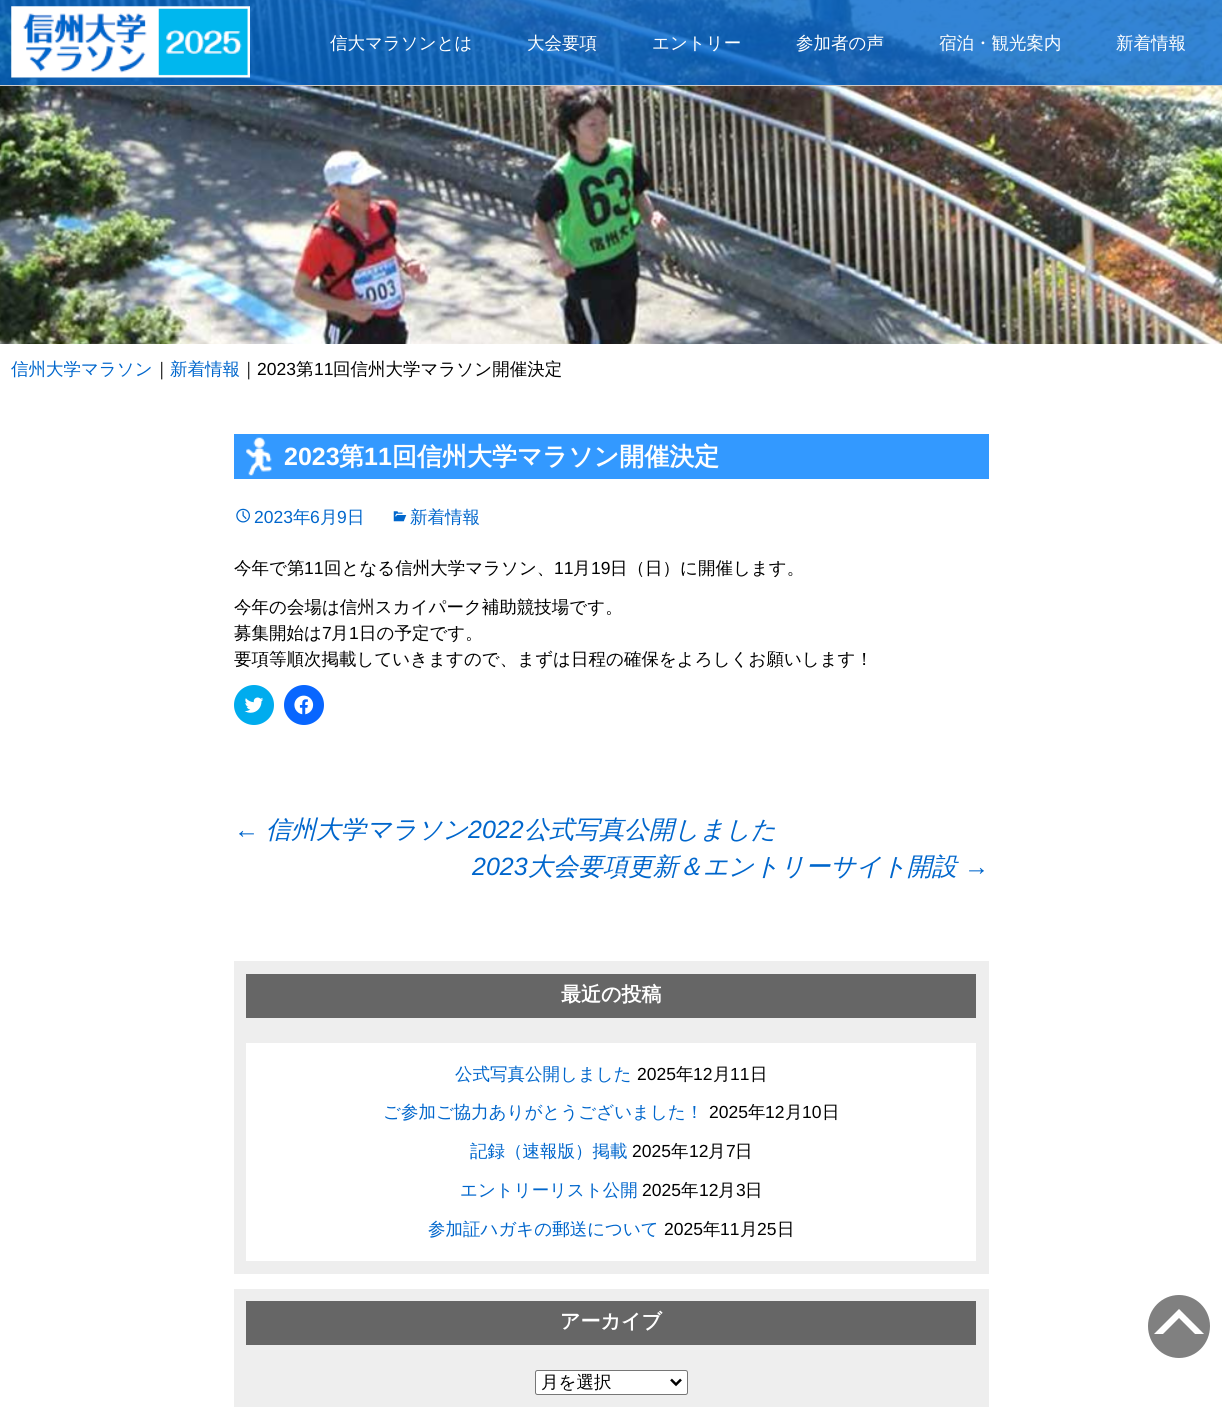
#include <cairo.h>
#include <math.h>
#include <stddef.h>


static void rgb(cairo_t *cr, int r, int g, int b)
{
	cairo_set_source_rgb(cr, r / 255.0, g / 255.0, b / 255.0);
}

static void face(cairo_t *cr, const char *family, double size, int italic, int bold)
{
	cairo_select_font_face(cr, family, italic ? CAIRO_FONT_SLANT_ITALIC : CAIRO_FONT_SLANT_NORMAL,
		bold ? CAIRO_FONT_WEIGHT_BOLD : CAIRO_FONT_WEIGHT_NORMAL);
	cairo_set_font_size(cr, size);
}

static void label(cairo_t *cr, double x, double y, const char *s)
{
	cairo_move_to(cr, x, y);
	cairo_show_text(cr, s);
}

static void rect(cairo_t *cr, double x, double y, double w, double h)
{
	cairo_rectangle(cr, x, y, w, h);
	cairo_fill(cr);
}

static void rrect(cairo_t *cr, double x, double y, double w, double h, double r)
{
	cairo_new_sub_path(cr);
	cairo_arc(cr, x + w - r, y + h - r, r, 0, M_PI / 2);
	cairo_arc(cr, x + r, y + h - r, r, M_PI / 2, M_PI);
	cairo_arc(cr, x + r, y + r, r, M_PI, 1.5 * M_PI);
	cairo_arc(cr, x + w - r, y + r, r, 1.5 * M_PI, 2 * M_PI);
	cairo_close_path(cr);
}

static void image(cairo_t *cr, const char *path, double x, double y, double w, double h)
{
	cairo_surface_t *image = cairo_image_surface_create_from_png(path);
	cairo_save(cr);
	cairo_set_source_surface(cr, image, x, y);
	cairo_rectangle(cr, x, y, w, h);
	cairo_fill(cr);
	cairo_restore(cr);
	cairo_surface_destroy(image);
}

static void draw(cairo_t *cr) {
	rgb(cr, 255, 255, 255);
	cairo_paint(cr);
	image(cr, "image0.png", 0, 0, 1222, 344);
	cairo_set_source_rgba(cr, 0, 0.4, 0.8, 0.8);
	rect(cr, 0, 0, 1222, 85);
	rgb(cr, 204, 204, 204);
	rect(cr, 0, 85, 1222, 1);
	image(cr, "image1.png", 11, 6, 239, 72);
	face(cr, "WenQuanYi Zen Hei Medium", 17.5, 0, 0);
	rgb(cr, 255, 255, 255);
	label(cr, 330, 49, "信大マラソンとは");
	label(cr, 527, 49, "大会要項");
	label(cr, 652, 49, "エントリー");
	label(cr, 796, 49, "参加者の声");
	label(cr, 939, 49, "宿泊・観光案内");
	label(cr, 1116, 49, "新着情報");
	rgb(cr, 0, 102, 204);
	label(cr, 11, 375, "信州大学マラソン");
	rgb(cr, 0, 0, 0);
	label(cr, 153, 375, "｜");
	rgb(cr, 0, 102, 204);
	label(cr, 170, 375, "新着情報");
	rgb(cr, 0, 0, 0);
	label(cr, 240, 375, "｜");
	face(cr, "Liberation Sans", 17.5, 0, 0);
	label(cr, 257, 375, "2023");
	face(cr, "WenQuanYi Zen Hei Medium", 17.5, 0, 0);
	label(cr, 296, 375, "第");
	face(cr, "Liberation Sans", 17.5, 0, 0);
	label(cr, 314, 375, "11");
	face(cr, "WenQuanYi Zen Hei Medium", 17.5, 0, 0);
	label(cr, 333, 375, "回信州大学マラソン開催決定");
	rgb(cr, 51, 153, 255);
	rect(cr, 234, 434, 755, 45);
	image(cr, "image2.png", 246, 437, 26, 39);
	face(cr, "Liberation Sans", 25, 0, 1);
	rgb(cr, 255, 255, 255);
	label(cr, 284, 465, "2023");
	face(cr, "WenQuanYi Zen Hei", 25, 0, 1);
	label(cr, 339, 465, "第");
	face(cr, "Liberation Sans", 25, 0, 1);
	label(cr, 364, 465, "11");
	face(cr, "WenQuanYi Zen Hei", 25, 0, 1);
	label(cr, 392, 465, "回信州大学マラソン開催決定");
	image(cr, "image3.png", 236, 508, 14, 15);
	face(cr, "Liberation Sans", 17.5, 0, 0);
	rgb(cr, 0, 102, 204);
	label(cr, 254, 523, "2023");
	face(cr, "WenQuanYi Zen Hei Medium", 17.5, 0, 0);
	label(cr, 293, 523, "年");
	face(cr, "Liberation Sans", 17.5, 0, 0);
	label(cr, 310, 523, "6");
	face(cr, "WenQuanYi Zen Hei Medium", 17.5, 0, 0);
	label(cr, 320, 523, "月");
	face(cr, "Liberation Sans", 17.5, 0, 0);
	label(cr, 337, 523, "9");
	face(cr, "WenQuanYi Zen Hei Medium", 17.5, 0, 0);
	label(cr, 347, 523, "日");
	image(cr, "image4.png", 393, 511, 14, 11);
	label(cr, 410, 523, "新着情報");
	rgb(cr, 0, 0, 0);
	label(cr, 234, 574, "今年で第");
	face(cr, "Liberation Sans", 17.5, 0, 0);
	label(cr, 304, 574, "11");
	face(cr, "WenQuanYi Zen Hei Medium", 17.5, 0, 0);
	label(cr, 324, 574, "回となる信州大学マラソン、");
	face(cr, "Liberation Sans", 17.5, 0, 0);
	label(cr, 554, 574, "11");
	face(cr, "WenQuanYi Zen Hei Medium", 17.5, 0, 0);
	label(cr, 573, 574, "月");
	face(cr, "Liberation Sans", 17.5, 0, 0);
	label(cr, 591, 574, "19");
	face(cr, "WenQuanYi Zen Hei Medium", 17.5, 0, 0);
	label(cr, 610, 574, "日（日）に開催します。");
	label(cr, 234, 613, "今年の会場は信州スカイパーク補助競技場です。");
	label(cr, 234, 639, "募集開始は");
	face(cr, "Liberation Sans", 17.5, 0, 0);
	label(cr, 322, 639, "7");
	face(cr, "WenQuanYi Zen Hei Medium", 17.5, 0, 0);
	label(cr, 331, 639, "月");
	face(cr, "Liberation Sans", 17.5, 0, 0);
	label(cr, 349, 639, "1");
	face(cr, "WenQuanYi Zen Hei Medium", 17.5, 0, 0);
	label(cr, 359, 639, "日の予定です。");
	label(cr, 234, 665, "要項等順次掲載していきますので、まずは日程の確保をよろしくお願いします！");
	rgb(cr, 0, 172, 238);
	cairo_new_path(cr);
	cairo_arc(cr, 254, 705, 20, 0, 2 * M_PI);
	cairo_fill(cr);
	image(cr, "image5.png", 244, 697, 20, 16);
	rgb(cr, 8, 102, 255);
	cairo_arc(cr, 304, 705, 20, 0, 2 * M_PI);
	cairo_fill(cr);
	image(cr, "image6.png", 294, 695, 20, 20);
	face(cr, "Liberation Sans", 25, 1, 0);
	rgb(cr, 0, 102, 204);
	label(cr, 234, 838, "←");
	face(cr, "WenQuanYi Zen Hei Medium", 25, 1, 0);
	label(cr, 266, 838, "信州大学マラソン");
	face(cr, "Liberation Sans", 25, 1, 0);
	label(cr, 468, 838, "2022");
	face(cr, "WenQuanYi Zen Hei Medium", 25, 1, 0);
	label(cr, 524, 838, "公式写真公開しました");
	face(cr, "Liberation Sans", 25, 1, 0);
	label(cr, 472, 875, "2023");
	face(cr, "WenQuanYi Zen Hei Medium", 25, 1, 0);
	label(cr, 528, 875, "大会要項更新＆エントリーサイト開設");
	face(cr, "Liberation Sans", 25, 1, 0);
	label(cr, 964, 875, "→");
	rgb(cr, 238, 238, 238);
	rect(cr, 234, 961, 755, 313);
	rgb(cr, 102, 102, 102);
	rect(cr, 246, 974, 730, 44);
	face(cr, "WenQuanYi Zen Hei", 20, 0, 1);
	rgb(cr, 255, 255, 255);
	label(cr, 561, 1001, "最近の投稿");
	rect(cr, 246, 1043, 730, 218);
	face(cr, "WenQuanYi Zen Hei Medium", 17.5, 0, 0);
	rgb(cr, 0, 102, 204);
	label(cr, 455, 1080, "公式写真公開しました");
	face(cr, "Liberation Sans", 17.5, 0, 0);
	rgb(cr, 0, 0, 0);
	label(cr, 637, 1080, "2025");
	face(cr, "WenQuanYi Zen Hei Medium", 17.5, 0, 0);
	label(cr, 676, 1080, "年");
	face(cr, "Liberation Sans", 17.5, 0, 0);
	label(cr, 693, 1080, "12");
	face(cr, "WenQuanYi Zen Hei Medium", 17.5, 0, 0);
	label(cr, 713, 1080, "月");
	face(cr, "Liberation Sans", 17.5, 0, 0);
	label(cr, 730, 1080, "11");
	face(cr, "WenQuanYi Zen Hei Medium", 17.5, 0, 0);
	label(cr, 750, 1080, "日");
	rgb(cr, 0, 102, 204);
	label(cr, 383, 1118, "ご参加ご協力ありがとうございました！");
	face(cr, "Liberation Sans", 17.5, 0, 0);
	rgb(cr, 0, 0, 0);
	label(cr, 709, 1118, "2025");
	face(cr, "WenQuanYi Zen Hei Medium", 17.5, 0, 0);
	label(cr, 748, 1118, "年");
	face(cr, "Liberation Sans", 17.5, 0, 0);
	label(cr, 765, 1118, "12");
	face(cr, "WenQuanYi Zen Hei Medium", 17.5, 0, 0);
	label(cr, 785, 1118, "月");
	face(cr, "Liberation Sans", 17.5, 0, 0);
	label(cr, 802, 1118, "10");
	face(cr, "WenQuanYi Zen Hei Medium", 17.5, 0, 0);
	label(cr, 822, 1118, "日");
	rgb(cr, 0, 102, 204);
	label(cr, 470, 1157, "記録（速報版）掲載");
	face(cr, "Liberation Sans", 17.5, 0, 0);
	rgb(cr, 0, 0, 0);
	label(cr, 632, 1157, "2025");
	face(cr, "WenQuanYi Zen Hei Medium", 17.5, 0, 0);
	label(cr, 671, 1157, "年");
	face(cr, "Liberation Sans", 17.5, 0, 0);
	label(cr, 689, 1157, "12");
	face(cr, "WenQuanYi Zen Hei Medium", 17.5, 0, 0);
	label(cr, 708, 1157, "月");
	face(cr, "Liberation Sans", 17.5, 0, 0);
	label(cr, 726, 1157, "7");
	face(cr, "WenQuanYi Zen Hei Medium", 17.5, 0, 0);
	label(cr, 735, 1157, "日");
	rgb(cr, 0, 102, 204);
	label(cr, 460, 1196, "エントリーリスト公開");
	face(cr, "Liberation Sans", 17.5, 0, 0);
	rgb(cr, 0, 0, 0);
	label(cr, 642, 1196, "2025");
	face(cr, "WenQuanYi Zen Hei Medium", 17.5, 0, 0);
	label(cr, 681, 1196, "年");
	face(cr, "Liberation Sans", 17.5, 0, 0);
	label(cr, 699, 1196, "12");
	face(cr, "WenQuanYi Zen Hei Medium", 17.5, 0, 0);
	label(cr, 718, 1196, "月");
	face(cr, "Liberation Sans", 17.5, 0, 0);
	label(cr, 736, 1196, "3");
	face(cr, "WenQuanYi Zen Hei Medium", 17.5, 0, 0);
	label(cr, 745, 1196, "日");
	rgb(cr, 0, 102, 204);
	label(cr, 428, 1235, "参加証ハガキの郵送について");
	face(cr, "Liberation Sans", 17.5, 0, 0);
	rgb(cr, 0, 0, 0);
	label(cr, 664, 1235, "2025");
	face(cr, "WenQuanYi Zen Hei Medium", 17.5, 0, 0);
	label(cr, 703, 1235, "年");
	face(cr, "Liberation Sans", 17.5, 0, 0);
	label(cr, 720, 1235, "11");
	face(cr, "WenQuanYi Zen Hei Medium", 17.5, 0, 0);
	label(cr, 740, 1235, "月");
	face(cr, "Liberation Sans", 17.5, 0, 0);
	label(cr, 757, 1235, "25");
	face(cr, "WenQuanYi Zen Hei Medium", 17.5, 0, 0);
	label(cr, 777, 1235, "日");
	rgb(cr, 238, 238, 238);
	rect(cr, 234, 1289, 755, 118);
	rgb(cr, 102, 102, 102);
	rect(cr, 246, 1301, 730, 44);
	face(cr, "WenQuanYi Zen Hei", 20, 0, 1);
	rgb(cr, 255, 255, 255);
	label(cr, 560, 1328, "アーカイブ");
	rrect(cr, 535.5, 1370.5, 152, 24, 2);
	cairo_fill_preserve(cr);
	rgb(cr, 118, 118, 118);
	cairo_set_line_width(cr, 1);
	cairo_stroke(cr);
	cairo_new_path(cr);
	cairo_move_to(cr, 671, 1379.5);
	cairo_line_to(cr, 676, 1384.5);
	cairo_line_to(cr, 681, 1379.5);
	rgb(cr, 0, 0, 0);
	cairo_set_line_width(cr, 2.5);
	cairo_stroke(cr);
	face(cr, "WenQuanYi Zen Hei Medium", 17.5, 0, 0);
	label(cr, 541, 1388, "月を選択");
	rgb(cr, 128, 128, 128);
	cairo_new_path(cr);
	cairo_move_to(cr, 1179, 1295);
	cairo_curve_to(cr, 1162, 1295, 1148, 1309, 1148, 1326);
	cairo_curve_to(cr, 1148, 1344, 1162, 1358, 1179, 1358);
	cairo_curve_to(cr, 1196, 1358, 1210, 1344, 1210, 1326);
	cairo_curve_to(cr, 1210, 1309, 1196, 1295, 1179, 1295);
	cairo_close_path(cr);
	cairo_move_to(cr, 1195, 1334);
	cairo_line_to(cr, 1179, 1318);
	cairo_line_to(cr, 1163, 1334);
	cairo_line_to(cr, 1154, 1334);
	cairo_line_to(cr, 1179, 1309);
	cairo_line_to(cr, 1204, 1334);
	cairo_close_path(cr);
	cairo_fill(cr);
}

int main(void) {
	cairo_surface_t *surface = cairo_image_surface_create(CAIRO_FORMAT_RGB24, 1222, 1407);
	cairo_t *cr = cairo_create(surface);
	cairo_font_options_t *options = cairo_font_options_create();
	cairo_font_options_set_hint_metrics(options, CAIRO_HINT_METRICS_OFF);
	cairo_font_options_set_hint_style(options, CAIRO_HINT_STYLE_NONE);
	cairo_set_font_options(cr, options);
	cairo_set_miter_limit(cr, 4);
	draw(cr);
	cairo_surface_write_to_png(surface, "render.png");
	cairo_font_options_destroy(options);
	cairo_destroy(cr);
	cairo_surface_destroy(surface);
	return 0;
}
